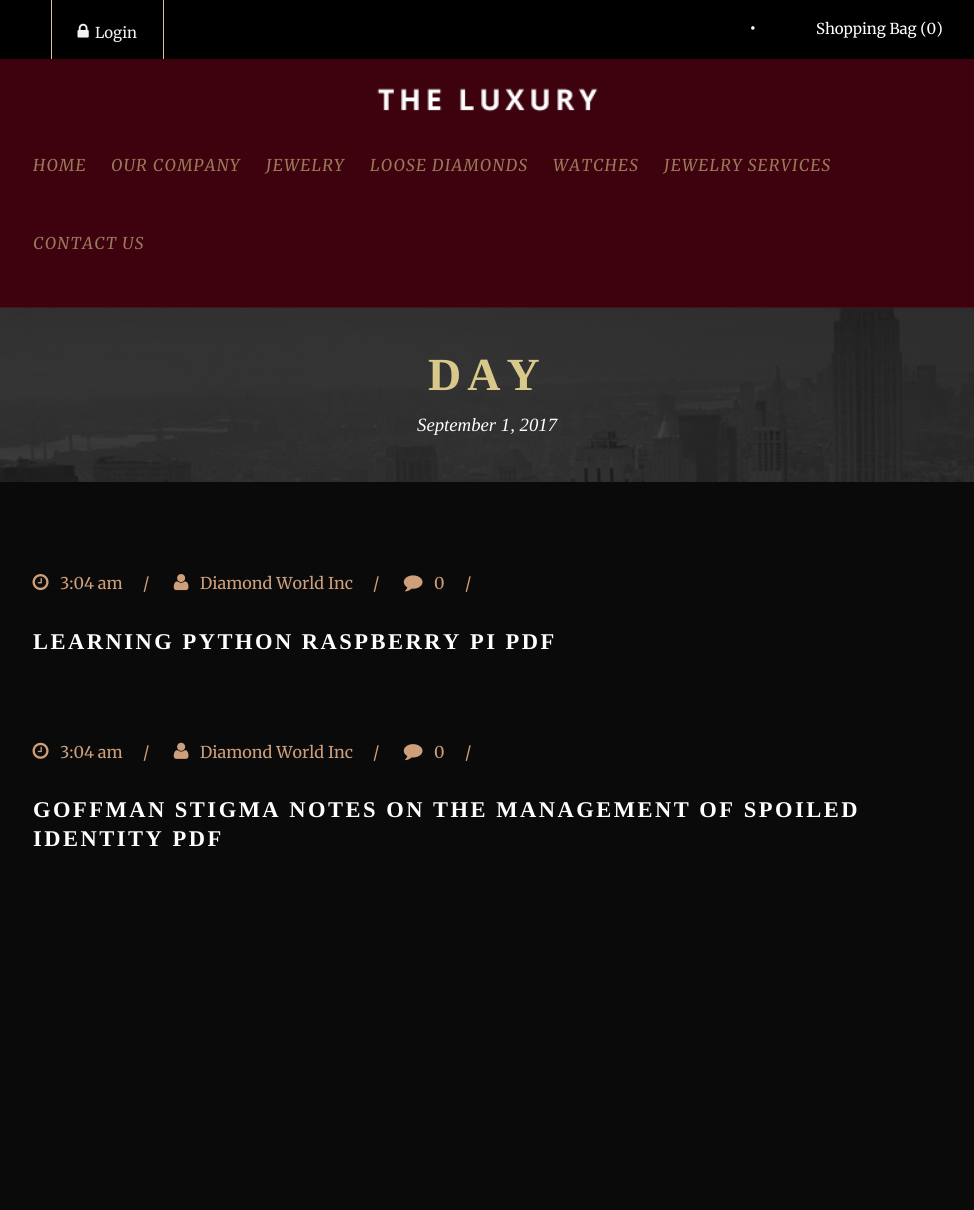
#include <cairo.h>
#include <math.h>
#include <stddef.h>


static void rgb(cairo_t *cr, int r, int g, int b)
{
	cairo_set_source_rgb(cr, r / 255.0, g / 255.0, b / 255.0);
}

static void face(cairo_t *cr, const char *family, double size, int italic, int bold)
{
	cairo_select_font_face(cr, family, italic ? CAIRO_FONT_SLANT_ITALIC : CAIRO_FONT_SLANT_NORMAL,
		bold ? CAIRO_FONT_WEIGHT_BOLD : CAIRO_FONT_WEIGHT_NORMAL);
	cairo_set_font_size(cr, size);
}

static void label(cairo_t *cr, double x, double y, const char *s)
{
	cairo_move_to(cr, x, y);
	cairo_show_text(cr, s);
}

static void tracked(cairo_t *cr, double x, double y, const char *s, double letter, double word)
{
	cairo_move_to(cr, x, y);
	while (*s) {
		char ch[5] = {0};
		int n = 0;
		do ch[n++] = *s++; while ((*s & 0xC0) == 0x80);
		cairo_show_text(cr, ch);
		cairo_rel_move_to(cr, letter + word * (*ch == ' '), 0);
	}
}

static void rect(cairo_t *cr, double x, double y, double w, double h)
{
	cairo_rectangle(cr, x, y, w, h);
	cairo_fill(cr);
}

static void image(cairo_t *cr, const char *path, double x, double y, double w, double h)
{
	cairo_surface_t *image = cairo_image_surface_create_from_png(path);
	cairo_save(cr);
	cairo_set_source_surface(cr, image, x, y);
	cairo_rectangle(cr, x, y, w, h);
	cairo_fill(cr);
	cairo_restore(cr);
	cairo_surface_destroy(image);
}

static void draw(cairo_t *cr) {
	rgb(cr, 10, 10, 10);
	cairo_paint(cr);
	rgb(cr, 0, 0, 0);
	rect(cr, 0, 0, 974, 59);
	rgb(cr, 216, 200, 138);
	rect(cr, 163, 0, 1, 59);
	rect(cr, 51, 0, 1, 59);
	image(cr, "image0.png", 77, 23, 12, 15);
	face(cr, "Merriweather", 15, 0, 0);
	rgb(cr, 242, 242, 242);
	label(cr, 95, 38, "Login");
	face(cr, "Merriweather", 18, 0, 0);
	rgb(cr, 255, 255, 255);
	label(cr, 749, 34, "•");
	face(cr, "Merriweather", 15, 0, 0);
	label(cr, 816, 34, "Shopping Bag (0)");
	image(cr, "image2.png", 0, 307, 974, 175);
	cairo_set_source_rgba(cr, 0.294, 0.004, 0.063, 0.8);
	rect(cr, 0, 59, 974, 249);
	image(cr, "image1.png", 377, 88, 221, 24);
	face(cr, "Merriweather", 16.25, 1, 0);
	rgb(cr, 154, 121, 89);
	tracked(cr, 33, 171, "HOME", 1.25, 0);
	tracked(cr, 111, 171, "OUR COMPANY", 1.25, 0);
	tracked(cr, 266, 171, "JEWELRY", 1.25, 0);
	tracked(cr, 370, 171, "LOOSE DIAMONDS", 1.25, 0);
	tracked(cr, 553, 171, "WATCHES", 1.25, 0);
	tracked(cr, 664, 171, "JEWELRY SERVICES", 1.25, 0);
	tracked(cr, 33, 249, "CONTACT US", 1.25, 0);
	face(cr, "Liberation Serif", 46, 0, 1);
	rgb(cr, 216, 200, 138);
	tracked(cr, 428, 390, "DAY", 6, 0);
	face(cr, "Liberation Serif", 18.75, 1, 0);
	rgb(cr, 255, 255, 255);
	label(cr, 417, 431, "September 1, 2017");
	image(cr, "image3.png", 32, 574, 17, 17);
	face(cr, "Merriweather", 16.25, 0, 0);
	rgb(cr, 205, 159, 122);
	label(cr, 60, 589, "3:04 am");
	label(cr, 143, 589, "/");
	image(cr, "image4.png", 173, 574, 16, 17);
	label(cr, 200, 589, "Diamond World Inc");
	label(cr, 373, 589, "/");
	image(cr, "image5.png", 403, 575, 20, 17);
	label(cr, 434, 589, "0");
	label(cr, 465, 589, "/");
	face(cr, "Liberation Serif", 22.5, 0, 1);
	rgb(cr, 255, 255, 255);
	tracked(cr, 33, 649, "LEARNING PYTHON RASPBERRY PI PDF", 2.5, 0);
	image(cr, "image6.png", 32, 742, 17, 17);
	face(cr, "Merriweather", 16.25, 0, 0);
	rgb(cr, 205, 159, 122);
	label(cr, 60, 758, "3:04 am");
	label(cr, 143, 758, "/");
	image(cr, "image7.png", 173, 742, 16, 17);
	label(cr, 200, 758, "Diamond World Inc");
	label(cr, 373, 758, "/");
	image(cr, "image8.png", 403, 744, 20, 17);
	label(cr, 434, 758, "0");
	label(cr, 465, 758, "/");
	face(cr, "Liberation Serif", 22.5, 0, 1);
	rgb(cr, 255, 255, 255);
	tracked(cr, 33, 817, "GOFFMAN STIGMA NOTES ON THE MANAGEMENT OF SPOILED", 2.5, 0);
	tracked(cr, 33, 846, "IDENTITY PDF", 2.5, 0);
}

int main(void) {
	cairo_surface_t *surface = cairo_image_surface_create(CAIRO_FORMAT_RGB24, 974, 1210);
	cairo_t *cr = cairo_create(surface);
	cairo_font_options_t *options = cairo_font_options_create();
	cairo_font_options_set_hint_metrics(options, CAIRO_HINT_METRICS_OFF);
	cairo_font_options_set_hint_style(options, CAIRO_HINT_STYLE_NONE);
	cairo_set_font_options(cr, options);
	cairo_set_miter_limit(cr, 4);
	draw(cr);
	cairo_surface_write_to_png(surface, "render.png");
	cairo_font_options_destroy(options);
	cairo_destroy(cr);
	cairo_surface_destroy(surface);
	return 0;
}
